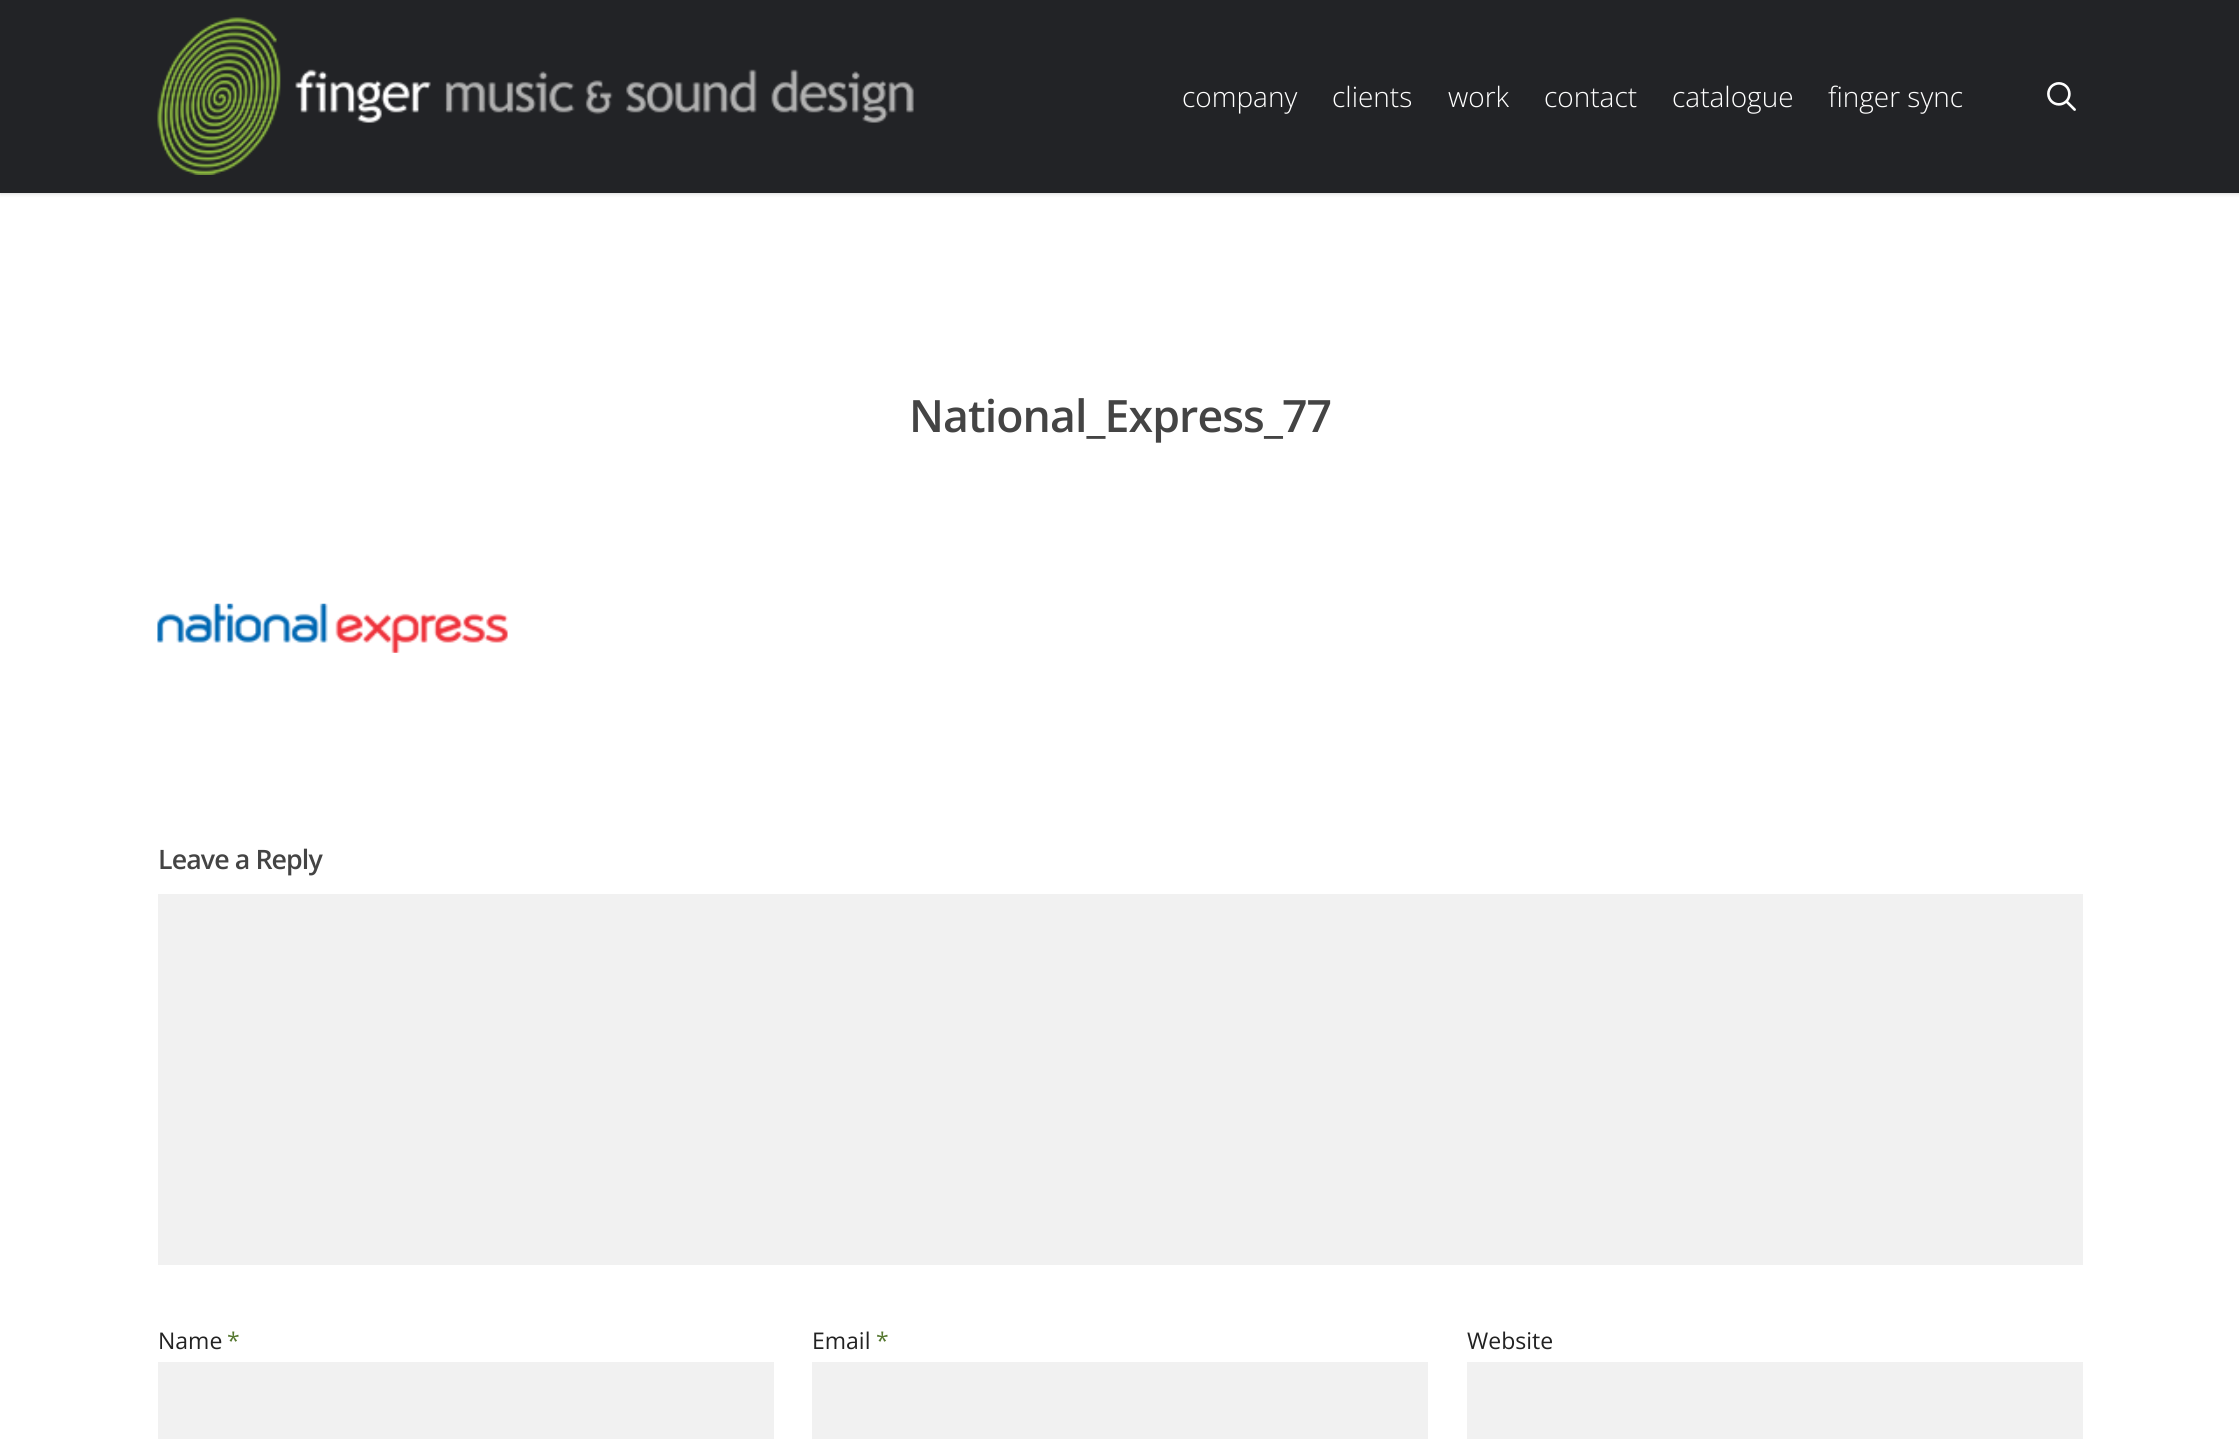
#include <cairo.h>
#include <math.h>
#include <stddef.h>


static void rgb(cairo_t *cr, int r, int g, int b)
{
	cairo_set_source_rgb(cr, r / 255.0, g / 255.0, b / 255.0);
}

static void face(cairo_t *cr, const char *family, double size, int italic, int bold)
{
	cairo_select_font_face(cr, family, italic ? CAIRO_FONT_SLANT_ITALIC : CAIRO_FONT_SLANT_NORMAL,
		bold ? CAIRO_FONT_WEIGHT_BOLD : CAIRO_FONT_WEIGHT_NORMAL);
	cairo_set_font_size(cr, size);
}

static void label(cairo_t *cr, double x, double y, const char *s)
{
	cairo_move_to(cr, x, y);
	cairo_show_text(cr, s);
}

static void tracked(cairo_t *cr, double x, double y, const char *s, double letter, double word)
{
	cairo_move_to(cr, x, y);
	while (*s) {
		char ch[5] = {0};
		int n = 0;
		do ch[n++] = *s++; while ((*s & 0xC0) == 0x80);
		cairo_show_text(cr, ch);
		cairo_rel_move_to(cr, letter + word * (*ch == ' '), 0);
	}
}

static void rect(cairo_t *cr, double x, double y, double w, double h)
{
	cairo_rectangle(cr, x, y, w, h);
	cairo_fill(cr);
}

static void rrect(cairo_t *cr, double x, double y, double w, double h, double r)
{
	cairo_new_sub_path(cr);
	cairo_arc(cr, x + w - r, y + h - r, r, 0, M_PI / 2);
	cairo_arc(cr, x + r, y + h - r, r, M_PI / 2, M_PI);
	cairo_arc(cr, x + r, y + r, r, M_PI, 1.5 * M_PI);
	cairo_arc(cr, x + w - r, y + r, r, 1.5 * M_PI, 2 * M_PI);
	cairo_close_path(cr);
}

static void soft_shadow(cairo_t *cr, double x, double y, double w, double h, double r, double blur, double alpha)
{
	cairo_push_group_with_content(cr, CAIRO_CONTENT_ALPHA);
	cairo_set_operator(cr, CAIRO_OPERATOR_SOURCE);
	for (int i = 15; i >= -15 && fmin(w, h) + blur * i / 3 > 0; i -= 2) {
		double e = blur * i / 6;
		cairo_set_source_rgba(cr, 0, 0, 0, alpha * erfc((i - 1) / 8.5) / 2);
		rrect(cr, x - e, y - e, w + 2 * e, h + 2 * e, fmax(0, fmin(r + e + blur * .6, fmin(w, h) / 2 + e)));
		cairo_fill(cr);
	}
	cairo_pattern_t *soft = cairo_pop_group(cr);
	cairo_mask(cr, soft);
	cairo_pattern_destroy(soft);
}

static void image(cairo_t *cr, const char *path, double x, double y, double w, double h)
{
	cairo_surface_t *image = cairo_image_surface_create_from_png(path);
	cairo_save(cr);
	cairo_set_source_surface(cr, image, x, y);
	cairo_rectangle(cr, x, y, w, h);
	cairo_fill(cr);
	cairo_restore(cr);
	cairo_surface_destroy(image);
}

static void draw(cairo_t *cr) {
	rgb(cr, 255, 255, 255);
	cairo_paint(cr);
	rgb(cr, 0, 0, 0);
	soft_shadow(cr, 0, 0, 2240, 193, 0, 2.5, 0.22);
	rgb(cr, 34, 35, 38);
	rect(cr, 0, 0, 2239, 193);
	image(cr, "image0.png", 157, 17, 757, 158);
	face(cr, "Open Sans Light", 28, 0, 0);
	rgb(cr, 255, 255, 255);
	label(cr, 1182, 107, "company");
	label(cr, 1332, 107, "clients");
	label(cr, 1448, 107, "work");
	label(cr, 1544, 107, "contact");
	label(cr, 1672, 107, "catalogue");
	label(cr, 1828, 107, "finger sync");
	image(cr, "image1.png", 2047, 82, 29, 29);
	face(cr, "Open Sans SemiBold", 44.6, 0, 0);
	rgb(cr, 68, 68, 68);
	tracked(cr, 909, 432, "National_Express_77", -0.9, 0);
	image(cr, "image2.png", 157, 603, 351, 50);
	face(cr, "Open Sans SemiBold", 26.75, 0, 0);
	tracked(cr, 158, 869, "Leave a Reply", -0.9, 0);
	rgb(cr, 241, 241, 241);
	rect(cr, 158, 894, 1925, 371);
	face(cr, "Open Sans", 23, 0, 0);
	rgb(cr, 34, 34, 34);
	label(cr, 158, 1349, "Name");
	rgb(cr, 86, 120, 48);
	label(cr, 227, 1349, "*");
	rgb(cr, 241, 241, 241);
	rect(cr, 158, 1362, 616, 77);
	rgb(cr, 34, 34, 34);
	label(cr, 812, 1349, "Email");
	rgb(cr, 86, 120, 48);
	label(cr, 876, 1349, "*");
	rgb(cr, 241, 241, 241);
	rect(cr, 812, 1362, 616, 77);
	rgb(cr, 34, 34, 34);
	label(cr, 1467, 1349, "Website");
	rgb(cr, 241, 241, 241);
	rect(cr, 1467, 1362, 616, 77);
}

int main(void) {
	cairo_surface_t *surface = cairo_image_surface_create(CAIRO_FORMAT_RGB24, 2239, 1446);
	cairo_t *cr = cairo_create(surface);
	cairo_font_options_t *options = cairo_font_options_create();
	cairo_font_options_set_hint_metrics(options, CAIRO_HINT_METRICS_OFF);
	cairo_font_options_set_hint_style(options, CAIRO_HINT_STYLE_NONE);
	cairo_set_font_options(cr, options);
	cairo_set_miter_limit(cr, 4);
	draw(cr);
	cairo_surface_write_to_png(surface, "render.png");
	cairo_font_options_destroy(options);
	cairo_destroy(cr);
	cairo_surface_destroy(surface);
	return 0;
}
